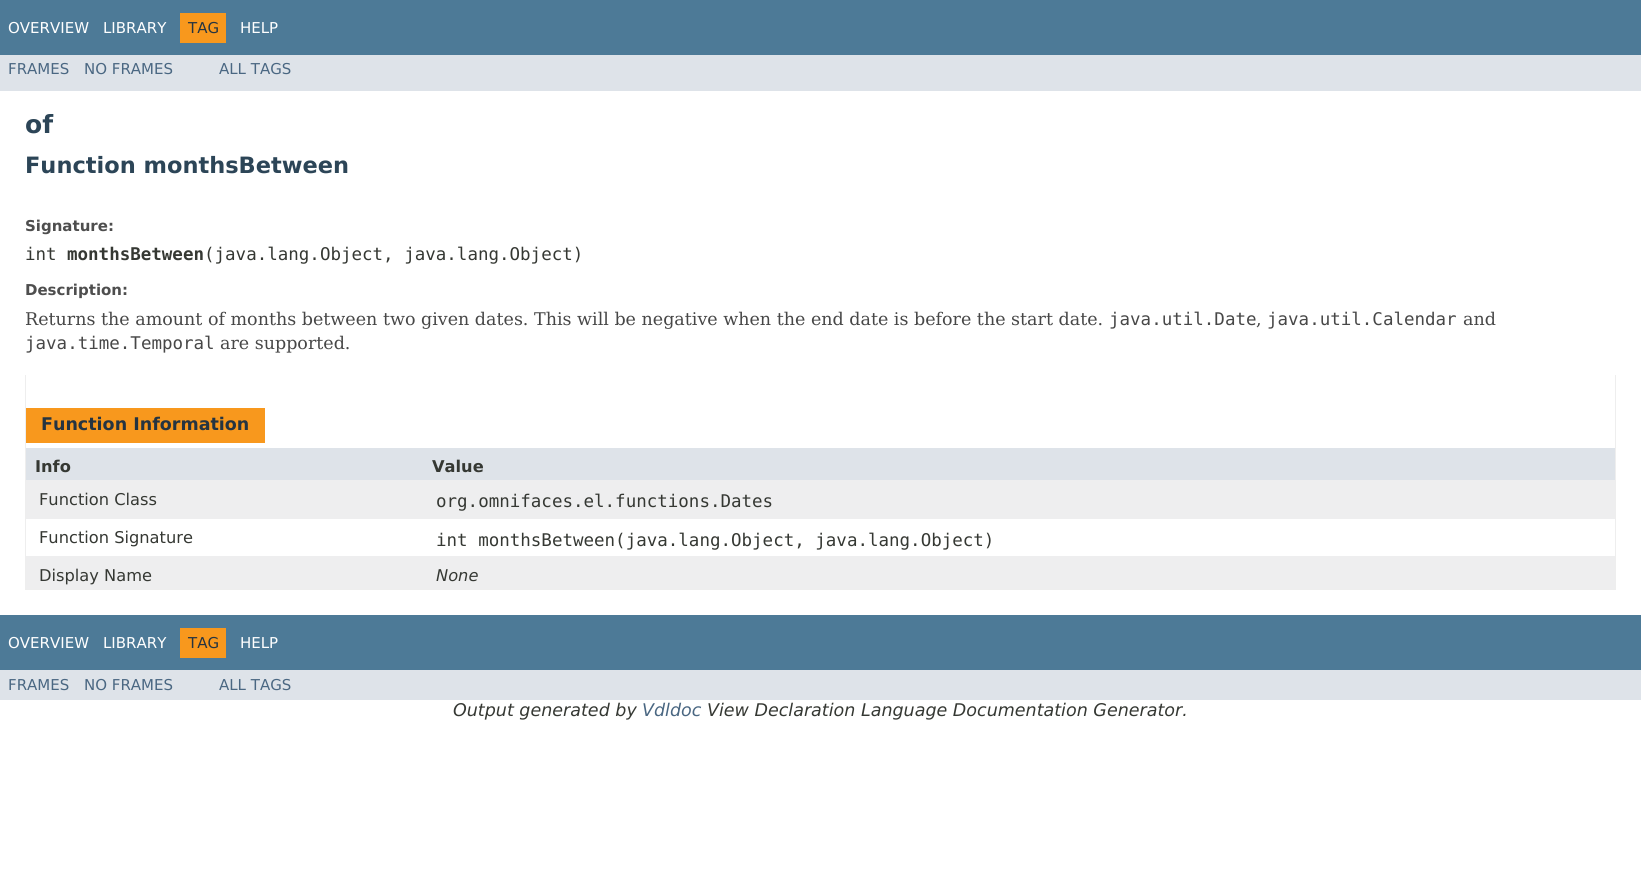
#include <cairo.h>
#include <math.h>
#include <stddef.h>


static void rgb(cairo_t *cr, int r, int g, int b)
{
	cairo_set_source_rgb(cr, r / 255.0, g / 255.0, b / 255.0);
}

static void face(cairo_t *cr, const char *family, double size, int italic, int bold)
{
	cairo_select_font_face(cr, family, italic ? CAIRO_FONT_SLANT_ITALIC : CAIRO_FONT_SLANT_NORMAL,
		bold ? CAIRO_FONT_WEIGHT_BOLD : CAIRO_FONT_WEIGHT_NORMAL);
	cairo_set_font_size(cr, size);
}

static void label(cairo_t *cr, double x, double y, const char *s)
{
	cairo_move_to(cr, x, y);
	cairo_show_text(cr, s);
}

static void rect(cairo_t *cr, double x, double y, double w, double h)
{
	cairo_rectangle(cr, x, y, w, h);
	cairo_fill(cr);
}

static void draw(cairo_t *cr) {
	rgb(cr, 255, 255, 255);
	cairo_paint(cr);
	rgb(cr, 77, 122, 151);
	rect(cr, 0, 0, 1641, 55);
	face(cr, "DejaVu Sans", 15, 0, 0);
	rgb(cr, 255, 255, 255);
	label(cr, 8, 33, "OVERVIEW");
	label(cr, 103, 33, "LIBRARY");
	rgb(cr, 248, 152, 29);
	rect(cr, 180, 13, 46, 30);
	rgb(cr, 37, 52, 65);
	label(cr, 188, 33, "TAG");
	rgb(cr, 255, 255, 255);
	label(cr, 240, 33, "HELP");
	rgb(cr, 222, 227, 233);
	rect(cr, 0, 55, 1641, 36);
	rgb(cr, 74, 103, 130);
	label(cr, 8, 74, "FRAMES");
	label(cr, 84, 74, "NO FRAMES");
	label(cr, 219, 74, "ALL TAGS");
	face(cr, "DejaVu Sans", 25, 0, 1);
	rgb(cr, 44, 69, 87);
	label(cr, 25, 133, "of");
	face(cr, "DejaVu Sans", 22.5, 0, 1);
	label(cr, 25, 173, "Function monthsBetween");
	face(cr, "DejaVu Sans", 15, 0, 1);
	rgb(cr, 78, 78, 78);
	label(cr, 25, 231, "Signature:");
	face(cr, "DejaVu Sans Mono", 17.5, 0, 0);
	rgb(cr, 53, 56, 51);
	label(cr, 25, 260, "int");
	face(cr, "DejaVu Sans Mono", 17.5, 0, 1);
	label(cr, 67, 260, "monthsBetween");
	face(cr, "DejaVu Sans Mono", 17.5, 0, 0);
	label(cr, 204, 260, "(java.lang.Object, java.lang.Object)");
	face(cr, "DejaVu Sans", 15, 0, 1);
	rgb(cr, 78, 78, 78);
	label(cr, 25, 295, "Description:");
	face(cr, "DejaVu Serif", 17.5, 0, 0);
	rgb(cr, 71, 71, 71);
	label(cr, 25, 325, "Returns the amount of months between two given dates. This will be negative when the end date is before the start date.");
	face(cr, "DejaVu Sans Mono", 17.5, 0, 0);
	label(cr, 1109, 325, "java.util.Date");
	face(cr, "DejaVu Serif", 17.5, 0, 0);
	label(cr, 1256, 325, ",");
	face(cr, "DejaVu Sans Mono", 17.5, 0, 0);
	label(cr, 1267, 325, "java.util.Calendar");
	face(cr, "DejaVu Serif", 17.5, 0, 0);
	label(cr, 1463, 325, "and");
	face(cr, "DejaVu Sans Mono", 17.5, 0, 0);
	label(cr, 25, 349, "java.time.Temporal");
	face(cr, "DejaVu Serif", 17.5, 0, 0);
	label(cr, 220, 349, "are supported.");
	rgb(cr, 238, 238, 238);
	rect(cr, 1615, 375, 1, 215);
	rect(cr, 25, 589, 1591, 1);
	rect(cr, 25, 375, 1, 215);
	rgb(cr, 248, 152, 29);
	rect(cr, 26, 408, 239, 35);
	face(cr, "DejaVu Sans", 17.5, 0, 1);
	rgb(cr, 37, 52, 65);
	label(cr, 41, 430, "Function Information");
	rgb(cr, 222, 227, 233);
	rect(cr, 26, 448, 1589, 32);
	face(cr, "DejaVu Sans", 16.25, 0, 1);
	rgb(cr, 53, 56, 51);
	label(cr, 35, 472, "Info");
	label(cr, 432, 472, "Value");
	rgb(cr, 238, 238, 239);
	rect(cr, 26, 480, 1589, 39);
	face(cr, "DejaVu Sans", 16.25, 0, 0);
	rgb(cr, 53, 56, 51);
	label(cr, 39, 505, "Function Class");
	face(cr, "DejaVu Sans Mono", 17.5, 0, 0);
	label(cr, 436, 507, "org.omnifaces.el.functions.Dates");
	face(cr, "DejaVu Sans", 16.25, 0, 0);
	label(cr, 39, 543, "Function Signature");
	face(cr, "DejaVu Sans Mono", 17.5, 0, 0);
	label(cr, 436, 546, "int monthsBetween(java.lang.Object, java.lang.Object)");
	rgb(cr, 238, 238, 239);
	rect(cr, 26, 556, 1589, 33);
	face(cr, "DejaVu Sans", 16.25, 0, 0);
	rgb(cr, 53, 56, 51);
	label(cr, 39, 581, "Display Name");
	face(cr, "DejaVu Sans", 16.25, 1, 0);
	label(cr, 436, 581, "None");
	rgb(cr, 77, 122, 151);
	rect(cr, 0, 615, 1641, 55);
	face(cr, "DejaVu Sans", 15, 0, 0);
	rgb(cr, 255, 255, 255);
	label(cr, 8, 648, "OVERVIEW");
	label(cr, 103, 648, "LIBRARY");
	rgb(cr, 248, 152, 29);
	rect(cr, 180, 628, 46, 30);
	rgb(cr, 37, 52, 65);
	label(cr, 188, 648, "TAG");
	rgb(cr, 255, 255, 255);
	label(cr, 240, 648, "HELP");
	rgb(cr, 222, 227, 233);
	rect(cr, 0, 670, 1641, 30);
	rgb(cr, 74, 103, 130);
	label(cr, 8, 690, "FRAMES");
	label(cr, 84, 690, "NO FRAMES");
	label(cr, 219, 690, "ALL TAGS");
	face(cr, "DejaVu Sans", 17.5, 1, 0);
	rgb(cr, 53, 56, 51);
	label(cr, 453, 716, "Output generated by");
	rgb(cr, 74, 103, 130);
	label(cr, 642, 716, "Vdldoc");
	rgb(cr, 53, 56, 51);
	label(cr, 707, 716, "View Declaration Language Documentation Generator.");
}

int main(void) {
	cairo_surface_t *surface = cairo_image_surface_create(CAIRO_FORMAT_RGB24, 1641, 881);
	cairo_t *cr = cairo_create(surface);
	cairo_font_options_t *options = cairo_font_options_create();
	cairo_font_options_set_hint_metrics(options, CAIRO_HINT_METRICS_OFF);
	cairo_font_options_set_hint_style(options, CAIRO_HINT_STYLE_NONE);
	cairo_set_font_options(cr, options);
	cairo_set_miter_limit(cr, 4);
	draw(cr);
	cairo_surface_write_to_png(surface, "render.png");
	cairo_font_options_destroy(options);
	cairo_destroy(cr);
	cairo_surface_destroy(surface);
	return 0;
}
